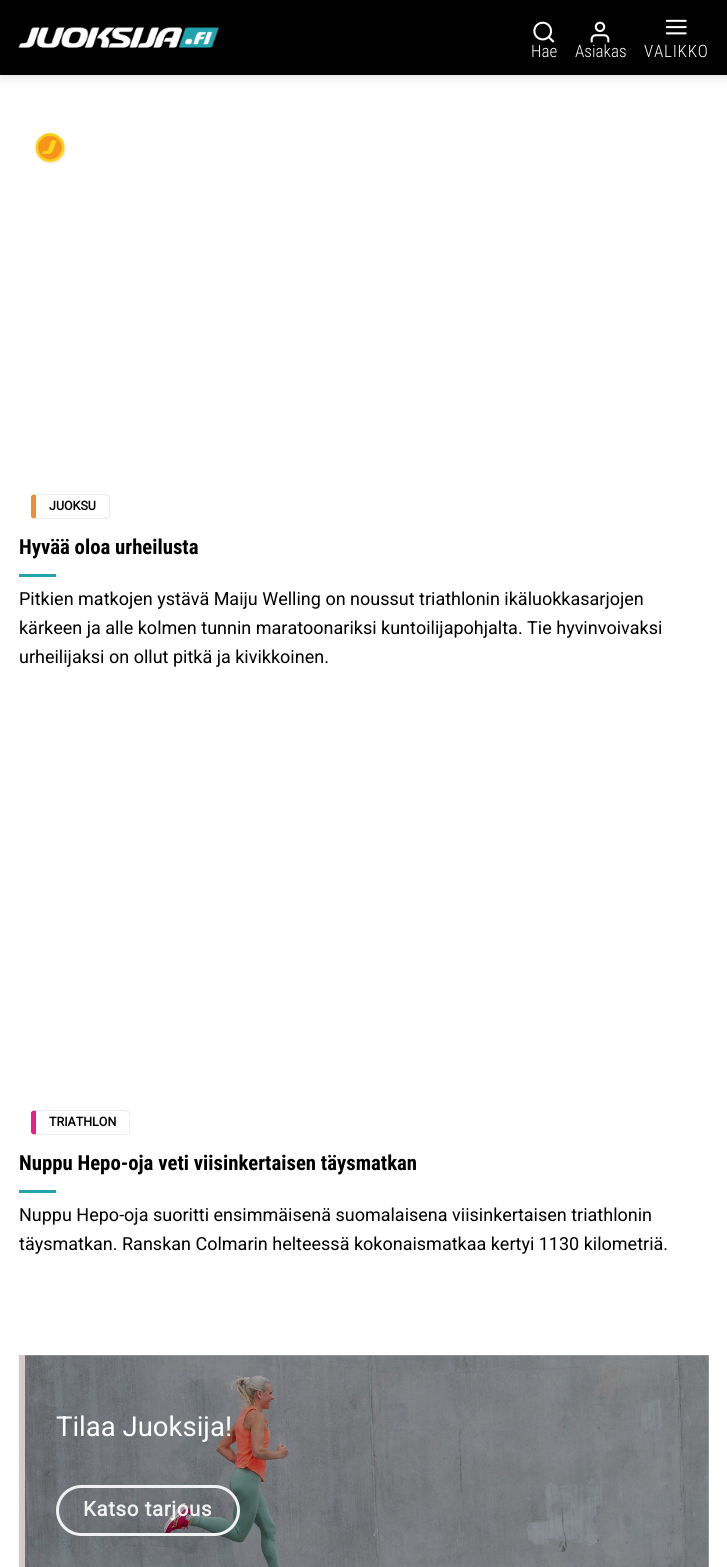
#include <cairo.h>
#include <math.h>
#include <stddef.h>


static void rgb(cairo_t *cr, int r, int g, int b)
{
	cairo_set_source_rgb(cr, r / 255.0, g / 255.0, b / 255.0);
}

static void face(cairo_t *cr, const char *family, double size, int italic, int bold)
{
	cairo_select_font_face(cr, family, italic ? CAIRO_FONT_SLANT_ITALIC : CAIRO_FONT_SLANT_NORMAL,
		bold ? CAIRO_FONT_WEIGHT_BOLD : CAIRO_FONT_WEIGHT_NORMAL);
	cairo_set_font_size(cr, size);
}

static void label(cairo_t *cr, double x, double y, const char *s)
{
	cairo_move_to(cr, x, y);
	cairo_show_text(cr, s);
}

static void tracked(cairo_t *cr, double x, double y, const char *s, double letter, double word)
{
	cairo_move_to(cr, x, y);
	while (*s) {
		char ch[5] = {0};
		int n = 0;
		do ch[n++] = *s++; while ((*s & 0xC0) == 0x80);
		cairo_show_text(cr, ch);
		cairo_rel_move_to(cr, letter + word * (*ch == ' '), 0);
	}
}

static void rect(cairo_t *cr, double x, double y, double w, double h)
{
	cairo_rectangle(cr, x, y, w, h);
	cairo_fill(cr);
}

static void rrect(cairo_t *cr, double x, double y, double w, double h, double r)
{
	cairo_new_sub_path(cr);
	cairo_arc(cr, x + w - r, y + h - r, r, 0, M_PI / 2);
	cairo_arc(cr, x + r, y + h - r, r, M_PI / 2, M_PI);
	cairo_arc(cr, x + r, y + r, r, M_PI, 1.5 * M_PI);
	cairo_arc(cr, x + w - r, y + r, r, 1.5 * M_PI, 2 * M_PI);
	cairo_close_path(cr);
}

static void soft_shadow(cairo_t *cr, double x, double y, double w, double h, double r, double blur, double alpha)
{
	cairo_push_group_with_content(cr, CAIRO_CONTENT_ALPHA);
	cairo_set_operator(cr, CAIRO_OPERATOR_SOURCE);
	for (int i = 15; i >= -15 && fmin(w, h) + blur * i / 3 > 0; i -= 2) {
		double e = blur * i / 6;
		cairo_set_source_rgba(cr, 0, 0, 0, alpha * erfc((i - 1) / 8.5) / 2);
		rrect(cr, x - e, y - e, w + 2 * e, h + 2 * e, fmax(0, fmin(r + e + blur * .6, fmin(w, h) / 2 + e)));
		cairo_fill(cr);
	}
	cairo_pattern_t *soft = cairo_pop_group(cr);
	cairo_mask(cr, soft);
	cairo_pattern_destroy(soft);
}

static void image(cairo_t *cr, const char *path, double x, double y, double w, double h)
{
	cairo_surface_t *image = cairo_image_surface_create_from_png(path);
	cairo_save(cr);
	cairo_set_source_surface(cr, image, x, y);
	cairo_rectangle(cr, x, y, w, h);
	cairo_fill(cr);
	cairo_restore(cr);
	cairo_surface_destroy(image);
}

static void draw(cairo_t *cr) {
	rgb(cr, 255, 255, 255);
	cairo_paint(cr);
	rgb(cr, 176, 176, 176);
	rect(cr, 19, 1355, 690, 212);
	rgb(cr, 0, 0, 0);
	soft_shadow(cr, 1, 1, 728, 75, 0, 6, 0.15);
	rgb(cr, 0, 0, 0);
	rect(cr, 0, 0, 727, 75);
	image(cr, "image0.png", 18, 27, 201, 21);
	image(cr, "image1.png", 533, 21, 22, 22);
	face(cr, "Roboto Condensed Light", 17, 0, 0);
	rgb(cr, 255, 255, 255);
	label(cr, 531, 57, "Hae");
	image(cr, "image2.png", 590, 21, 20, 22);
	label(cr, 575, 57, "Asiakas");
	image(cr, "image3.png", 665, 19, 22, 16);
	tracked(cr, 644, 57, "VALIKKO", 0.75, 0);
	image(cr, "image4.png", 34, 132, 32, 32);
	rgb(cr, 236, 236, 236);
	cairo_new_path(cr);
	cairo_move_to(cr, 35, 494);
	cairo_line_to(cr, 33, 494);
	cairo_line_to(cr, 36, 495);
	cairo_line_to(cr, 106, 495);
	cairo_line_to(cr, 108, 496);
	cairo_line_to(cr, 109, 495);
	cairo_line_to(cr, 106, 494);
	cairo_close_path(cr);
	cairo_fill(cr);
	cairo_new_path(cr);
	cairo_move_to(cr, 109, 495);
	cairo_curve_to(cr, 109.5, 495.5, 110, 496.5, 110, 498);
	cairo_line_to(cr, 110, 515);
	cairo_curve_to(cr, 110, 516, 109.5, 517, 109, 517.5);
	cairo_line_to(cr, 108, 517);
	cairo_curve_to(cr, 108.5, 516.5, 109, 515.5, 109, 515);
	cairo_line_to(cr, 109, 498);
	cairo_curve_to(cr, 109, 497, 108.5, 496, 108, 495.5);
	cairo_close_path(cr);
	cairo_fill(cr);
	cairo_new_path(cr);
	cairo_move_to(cr, 34, 519);
	cairo_line_to(cr, 33, 518);
	cairo_line_to(cr, 36, 518);
	cairo_line_to(cr, 106, 518);
	cairo_line_to(cr, 108, 517);
	cairo_line_to(cr, 109, 518);
	cairo_line_to(cr, 107, 519);
	cairo_close_path(cr);
	cairo_fill(cr);
	rgb(cr, 239, 140, 53);
	cairo_new_path(cr);
	cairo_move_to(cr, 36, 495);
	cairo_line_to(cr, 36, 517.5);
	cairo_line_to(cr, 33, 518.5);
	cairo_curve_to(cr, 32, 518, 31.5, 517, 31, 516.5);
	cairo_line_to(cr, 31, 496.5);
	cairo_curve_to(cr, 31.5, 495.5, 32.5, 494.5, 33.5, 494.5);
	cairo_close_path(cr);
	cairo_fill(cr);
	face(cr, "Roboto", 12.5, 0, 1);
	rgb(cr, 0, 0, 0);
	label(cr, 49, 510, "JUOKSU");
	face(cr, "Roboto Condensed", 20.75, 0, 1);
	label(cr, 19, 554, "Hyvää oloa urheilusta");
	rgb(cr, 33, 164, 174);
	rect(cr, 19, 574, 37, 3);
	face(cr, "Roboto", 18, 0, 0);
	rgb(cr, 0, 0, 0);
	label(cr, 19, 605, "Pitkien matkojen ystävä Maiju Welling on noussut triathlonin ikäluokkasarjojen");
	label(cr, 19, 634, "kärkeen ja alle kolmen tunnin maratoonariksi kuntoilijapohjalta. Tie hyvinvoivaksi");
	label(cr, 19, 663, "urheilijaksi on ollut pitkä ja kivikkoinen.");
	rgb(cr, 236, 236, 236);
	cairo_new_path(cr);
	cairo_move_to(cr, 35, 1110);
	cairo_line_to(cr, 33, 1110);
	cairo_line_to(cr, 36, 1111);
	cairo_line_to(cr, 126, 1111);
	cairo_line_to(cr, 128, 1112);
	cairo_line_to(cr, 129, 1111);
	cairo_line_to(cr, 126, 1110);
	cairo_close_path(cr);
	cairo_fill(cr);
	cairo_new_path(cr);
	cairo_move_to(cr, 130, 1131);
	cairo_line_to(cr, 130, 1114);
	cairo_curve_to(cr, 130, 1113, 129.5, 1112, 129, 1111);
	cairo_line_to(cr, 128, 1112);
	cairo_curve_to(cr, 130, 1113.5, 129, 1120.5, 129, 1122.5);
	cairo_curve_to(cr, 129, 1124.5, 130, 1131.5, 128, 1133);
	cairo_line_to(cr, 129, 1134);
	cairo_curve_to(cr, 129.5, 1133, 130, 1132, 130, 1131);
	cairo_close_path(cr);
	cairo_fill(cr);
	cairo_new_path(cr);
	cairo_move_to(cr, 35, 1135);
	cairo_line_to(cr, 126, 1135);
	cairo_line_to(cr, 129, 1134);
	cairo_line_to(cr, 128, 1133);
	cairo_line_to(cr, 126, 1134);
	cairo_line_to(cr, 36, 1134);
	cairo_line_to(cr, 33, 1135);
	cairo_close_path(cr);
	cairo_fill(cr);
	rgb(cr, 231, 32, 134);
	cairo_new_path(cr);
	cairo_move_to(cr, 31, 1112.5);
	cairo_curve_to(cr, 31.5, 1112, 32.5, 1111, 33, 1110.5);
	cairo_line_to(cr, 36, 1111);
	cairo_line_to(cr, 36, 1134);
	cairo_line_to(cr, 33, 1134.5);
	cairo_curve_to(cr, 32.5, 1134, 31.5, 1133, 31, 1132.5);
	cairo_close_path(cr);
	cairo_fill(cr);
	face(cr, "Roboto", 12.5, 0, 1);
	rgb(cr, 0, 0, 0);
	label(cr, 49, 1126, "TRIATHLON");
	face(cr, "Roboto Condensed", 20.75, 0, 1);
	label(cr, 19, 1170, "Nuppu Hepo-oja veti viisinkertaisen täysmatkan");
	rgb(cr, 33, 164, 174);
	rect(cr, 19, 1190, 37, 3);
	face(cr, "Roboto", 18, 0, 0);
	rgb(cr, 0, 0, 0);
	label(cr, 19, 1221, "Nuppu Hepo-oja suoritti ensimmäisenä suomalaisena viisinkertaisen triathlonin");
	label(cr, 19, 1250, "täysmatkan. Ranskan Colmarin helteessä kokonaismatkaa kertyi 1130 kilometriä.");
	image(cr, "image5.png", 18, 1355, 691, 212);
	cairo_set_source_rgba(cr, 0.843, 0.8, 0.788, 0.98);
	rect(cr, 19, 1355, 6, 212);
	face(cr, "Roboto", 27.5, 0, 0);
	rgb(cr, 255, 255, 255);
	label(cr, 56, 1436, "Tilaa Juoksija!");
	rrect(cr, 57.5, 1486.5, 181, 48, 24);
	rgb(cr, 241, 241, 241);
	cairo_set_line_width(cr, 3);
	cairo_stroke(cr);
	face(cr, "Roboto", 20.5, 0, 1);
	tracked(cr, 83, 1516, "Katso tarjous", 0.6, 0);
}

int main(void) {
	cairo_surface_t *surface = cairo_image_surface_create(CAIRO_FORMAT_RGB24, 727, 1567);
	cairo_t *cr = cairo_create(surface);
	cairo_font_options_t *options = cairo_font_options_create();
	cairo_font_options_set_hint_metrics(options, CAIRO_HINT_METRICS_OFF);
	cairo_font_options_set_hint_style(options, CAIRO_HINT_STYLE_NONE);
	cairo_set_font_options(cr, options);
	cairo_set_miter_limit(cr, 4);
	draw(cr);
	cairo_surface_write_to_png(surface, "render.png");
	cairo_font_options_destroy(options);
	cairo_destroy(cr);
	cairo_surface_destroy(surface);
	return 0;
}
